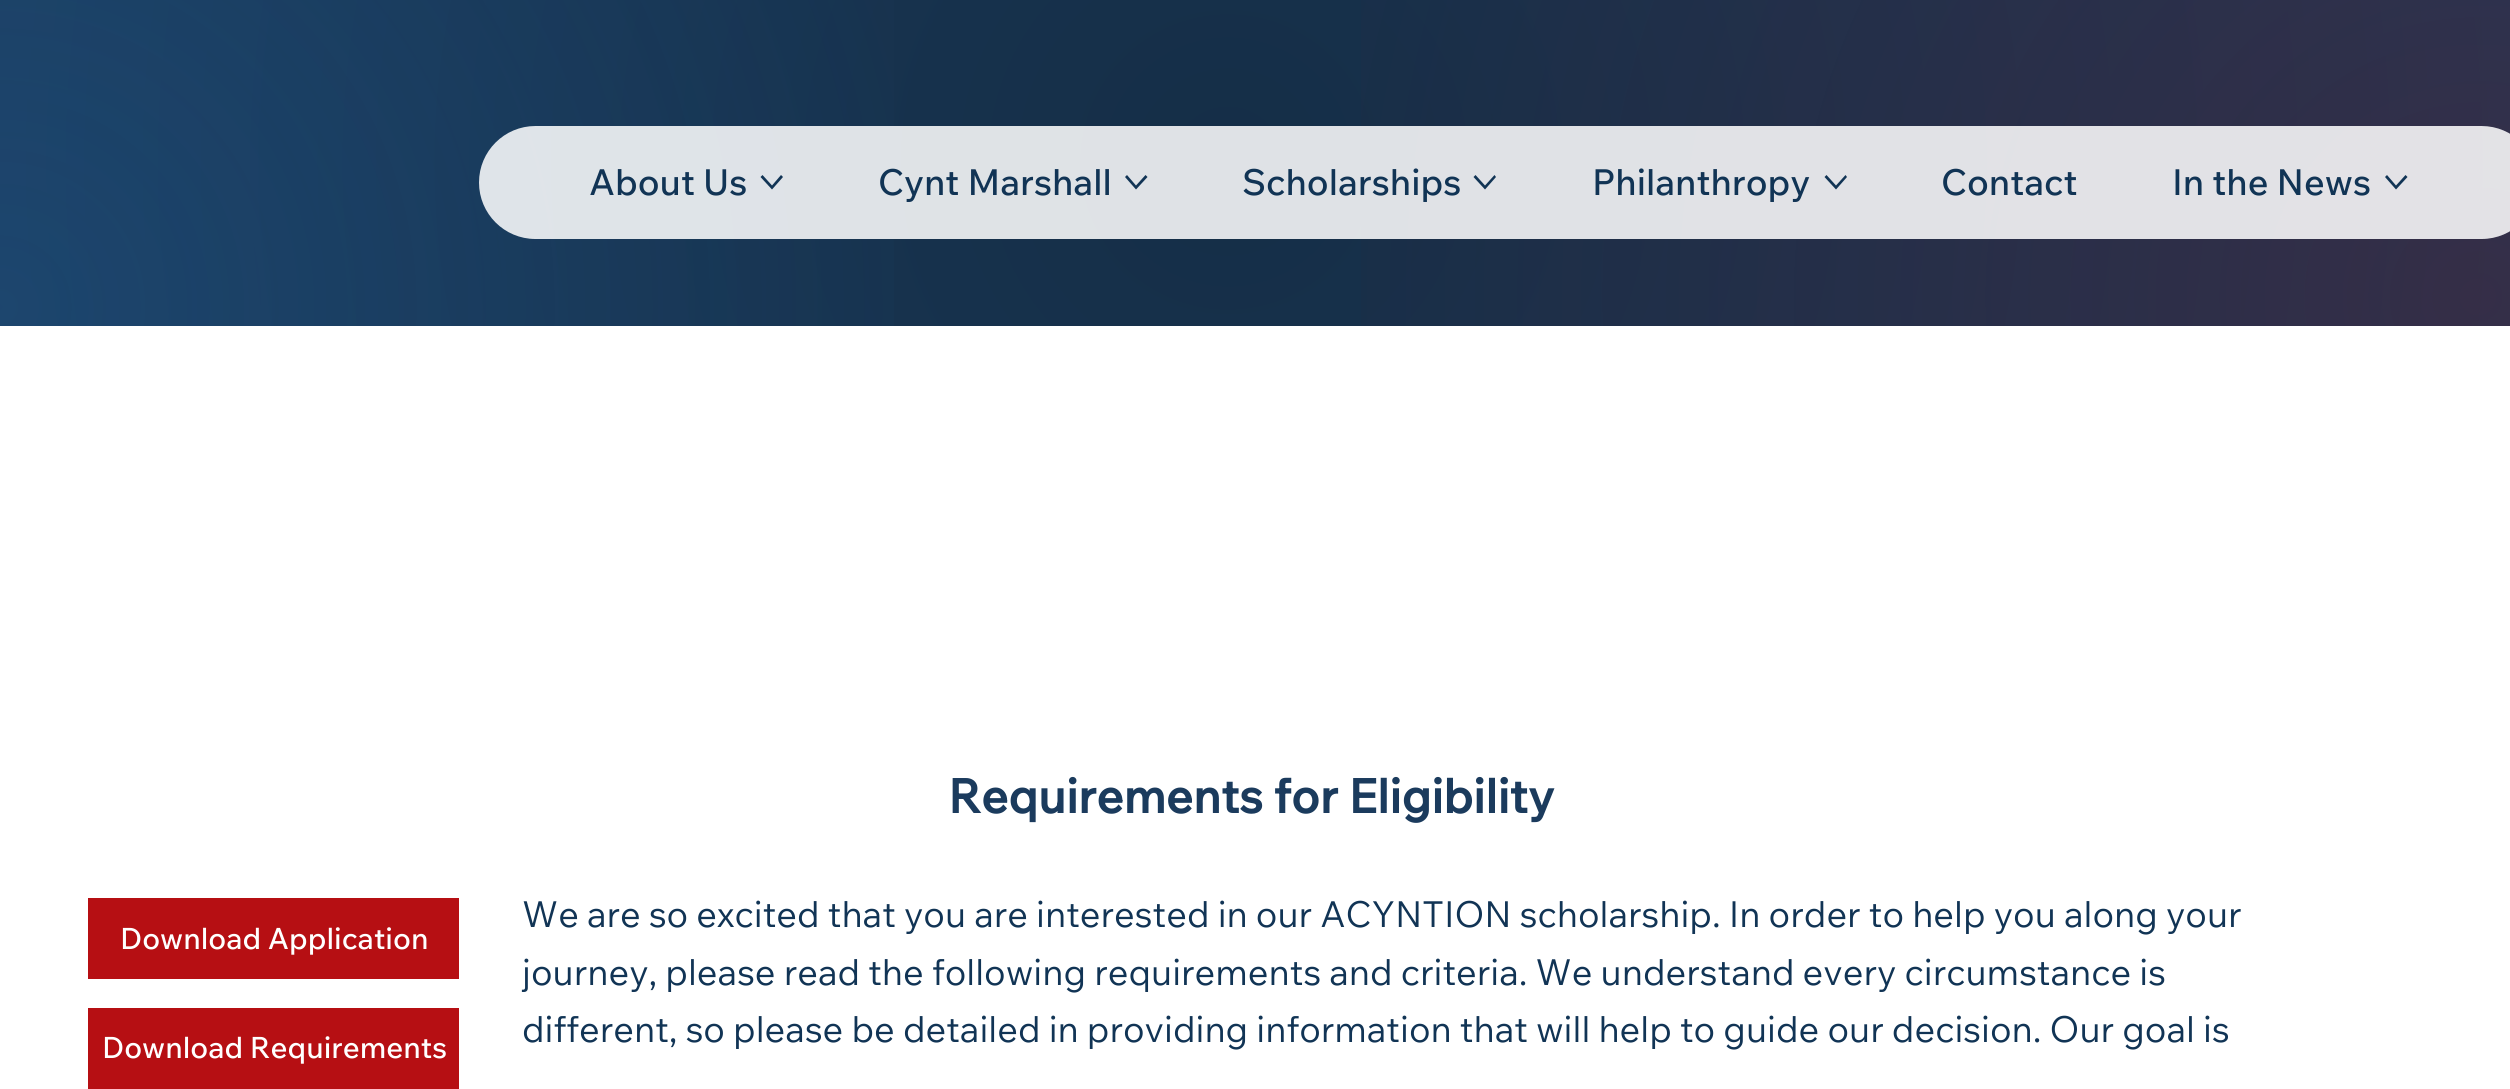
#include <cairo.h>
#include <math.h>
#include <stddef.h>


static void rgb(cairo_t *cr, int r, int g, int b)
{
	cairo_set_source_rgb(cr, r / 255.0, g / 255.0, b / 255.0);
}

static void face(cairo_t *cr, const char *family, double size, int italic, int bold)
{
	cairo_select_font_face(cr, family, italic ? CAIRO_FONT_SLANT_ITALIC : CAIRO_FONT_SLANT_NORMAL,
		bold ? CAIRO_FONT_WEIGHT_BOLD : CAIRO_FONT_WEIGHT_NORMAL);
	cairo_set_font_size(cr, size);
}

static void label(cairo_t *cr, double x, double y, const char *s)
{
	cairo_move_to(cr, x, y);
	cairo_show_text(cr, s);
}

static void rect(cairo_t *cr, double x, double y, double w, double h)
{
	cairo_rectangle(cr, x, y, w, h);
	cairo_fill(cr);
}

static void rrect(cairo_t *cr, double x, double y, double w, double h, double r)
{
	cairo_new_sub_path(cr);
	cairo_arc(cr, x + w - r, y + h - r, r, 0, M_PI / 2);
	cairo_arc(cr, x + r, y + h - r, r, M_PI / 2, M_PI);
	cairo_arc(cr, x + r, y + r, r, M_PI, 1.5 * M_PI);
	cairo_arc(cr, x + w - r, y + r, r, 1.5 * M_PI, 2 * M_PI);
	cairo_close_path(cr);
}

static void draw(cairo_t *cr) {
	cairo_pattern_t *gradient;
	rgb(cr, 255, 255, 255);
	cairo_paint(cr);
	gradient = cairo_pattern_create_radial(1228, 162, 0, 1228, 162, 1294);
	cairo_pattern_add_color_stop_rgba(gradient, 0, 0.082, 0.18, 0.278, 1);
	cairo_pattern_add_color_stop_rgba(gradient, 1, 0.106, 0.235, 0.365, 1);
	cairo_set_source(cr, gradient);
	cairo_pattern_destroy(gradient);
	rect(cr, 0, 0, 2510, 326);
	gradient = cairo_pattern_create_radial(2478, 297, 0, 2478, 297, 2496);
	cairo_pattern_add_color_stop_rgba(gradient, 0, 0.545, 0, 0, 0.23);
	cairo_pattern_add_color_stop_rgba(gradient, 0.5, 0.545, 0, 0, 0);
	cairo_set_source(cr, gradient);
	cairo_pattern_destroy(gradient);
	rect(cr, 1361, 0, 1149, 326);
	gradient = cairo_pattern_create_radial(0, 307, 0, 0, 307, 2530);
	cairo_pattern_add_color_stop_rgba(gradient, 0, 0.133, 0.408, 0.667, 0.23);
	cairo_pattern_add_color_stop_rgba(gradient, 0.4, 0.133, 0.408, 0.667, 0);
	cairo_set_source(cr, gradient);
	cairo_pattern_destroy(gradient);
	rect(cr, 0, 0, 894, 326);
	cairo_set_source_rgba(cr, 1, 1, 1, 0.86);
	rrect(cr, 479, 126, 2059, 113, 56.5);
	cairo_fill(cr);
	face(cr, "Wix Madefor Text Medium", 36, 0, 0);
	rgb(cr, 17, 52, 85);
	label(cr, 589, 195, "About Us");
	cairo_new_path(cr);
	cairo_move_to(cr, 772, 189.5);
	cairo_line_to(cr, 783, 177);
	cairo_line_to(cr, 781, 175);
	cairo_line_to(cr, 772, 185.5);
	cairo_line_to(cr, 762.5, 175);
	cairo_line_to(cr, 760.5, 177);
	cairo_close_path(cr);
	cairo_fill(cr);
	label(cr, 878, 195, "Cynt Marshall");
	cairo_new_path(cr);
	cairo_move_to(cr, 1136, 189.5);
	cairo_line_to(cr, 1147.5, 177);
	cairo_line_to(cr, 1145.5, 175);
	cairo_line_to(cr, 1136, 185.5);
	cairo_line_to(cr, 1127, 175);
	cairo_line_to(cr, 1125, 177);
	cairo_close_path(cr);
	cairo_fill(cr);
	label(cr, 1242, 195, "Scholarships");
	cairo_new_path(cr);
	cairo_move_to(cr, 1485, 189.5);
	cairo_line_to(cr, 1496, 177);
	cairo_line_to(cr, 1494.5, 175);
	cairo_line_to(cr, 1485, 185.5);
	cairo_line_to(cr, 1475.5, 175);
	cairo_line_to(cr, 1473.5, 177);
	cairo_close_path(cr);
	cairo_fill(cr);
	label(cr, 1592, 195, "Philanthropy");
	cairo_new_path(cr);
	cairo_move_to(cr, 1836, 189.5);
	cairo_line_to(cr, 1847, 177);
	cairo_line_to(cr, 1845.5, 175);
	cairo_line_to(cr, 1836, 185.5);
	cairo_line_to(cr, 1826.5, 175);
	cairo_line_to(cr, 1824.5, 177);
	cairo_close_path(cr);
	cairo_fill(cr);
	label(cr, 1941, 195, "Contact");
	label(cr, 2172, 195, "In the News");
	cairo_new_path(cr);
	cairo_move_to(cr, 2396, 189.5);
	cairo_line_to(cr, 2407.5, 177);
	cairo_line_to(cr, 2405.5, 175);
	cairo_line_to(cr, 2396, 185.5);
	cairo_line_to(cr, 2387, 175);
	cairo_line_to(cr, 2385, 177);
	cairo_close_path(cr);
	cairo_fill(cr);
	rgb(cr, 182, 15, 19);
	rect(cr, 88, 898, 371, 81);
	face(cr, "Wix Madefor Text Medium", 29.5, 0, 0);
	rgb(cr, 255, 255, 255);
	label(cr, 120, 949, "Download Application");
	rgb(cr, 182, 15, 19);
	rect(cr, 88, 1008, 371, 81);
	rgb(cr, 255, 255, 255);
	label(cr, 102, 1058, "Download Requirements");
	face(cr, "Wix Madefor Text", 47.1, 0, 1);
	rgb(cr, 27, 59, 93);
	label(cr, 948, 813, "Requirements for Eligibility");
	face(cr, "Wix Madefor Text", 36, 0, 0);
	rgb(cr, 17, 52, 85);
	label(cr, 522, 927, "We are so excited that you are interested in our ACYNTION scholarship. In order to help you along your");
	label(cr, 522, 985, "journey, please read the following requirements and criteria. We understand every circumstance is");
	label(cr, 522, 1042, "different, so please be detailed in providing information that will help to guide our decision. Our goal is");
}

int main(void) {
	cairo_surface_t *surface = cairo_image_surface_create(CAIRO_FORMAT_RGB24, 2510, 1089);
	cairo_t *cr = cairo_create(surface);
	cairo_font_options_t *options = cairo_font_options_create();
	cairo_font_options_set_hint_metrics(options, CAIRO_HINT_METRICS_OFF);
	cairo_font_options_set_hint_style(options, CAIRO_HINT_STYLE_NONE);
	cairo_set_font_options(cr, options);
	cairo_set_miter_limit(cr, 4);
	draw(cr);
	cairo_surface_write_to_png(surface, "render.png");
	cairo_font_options_destroy(options);
	cairo_destroy(cr);
	cairo_surface_destroy(surface);
	return 0;
}
